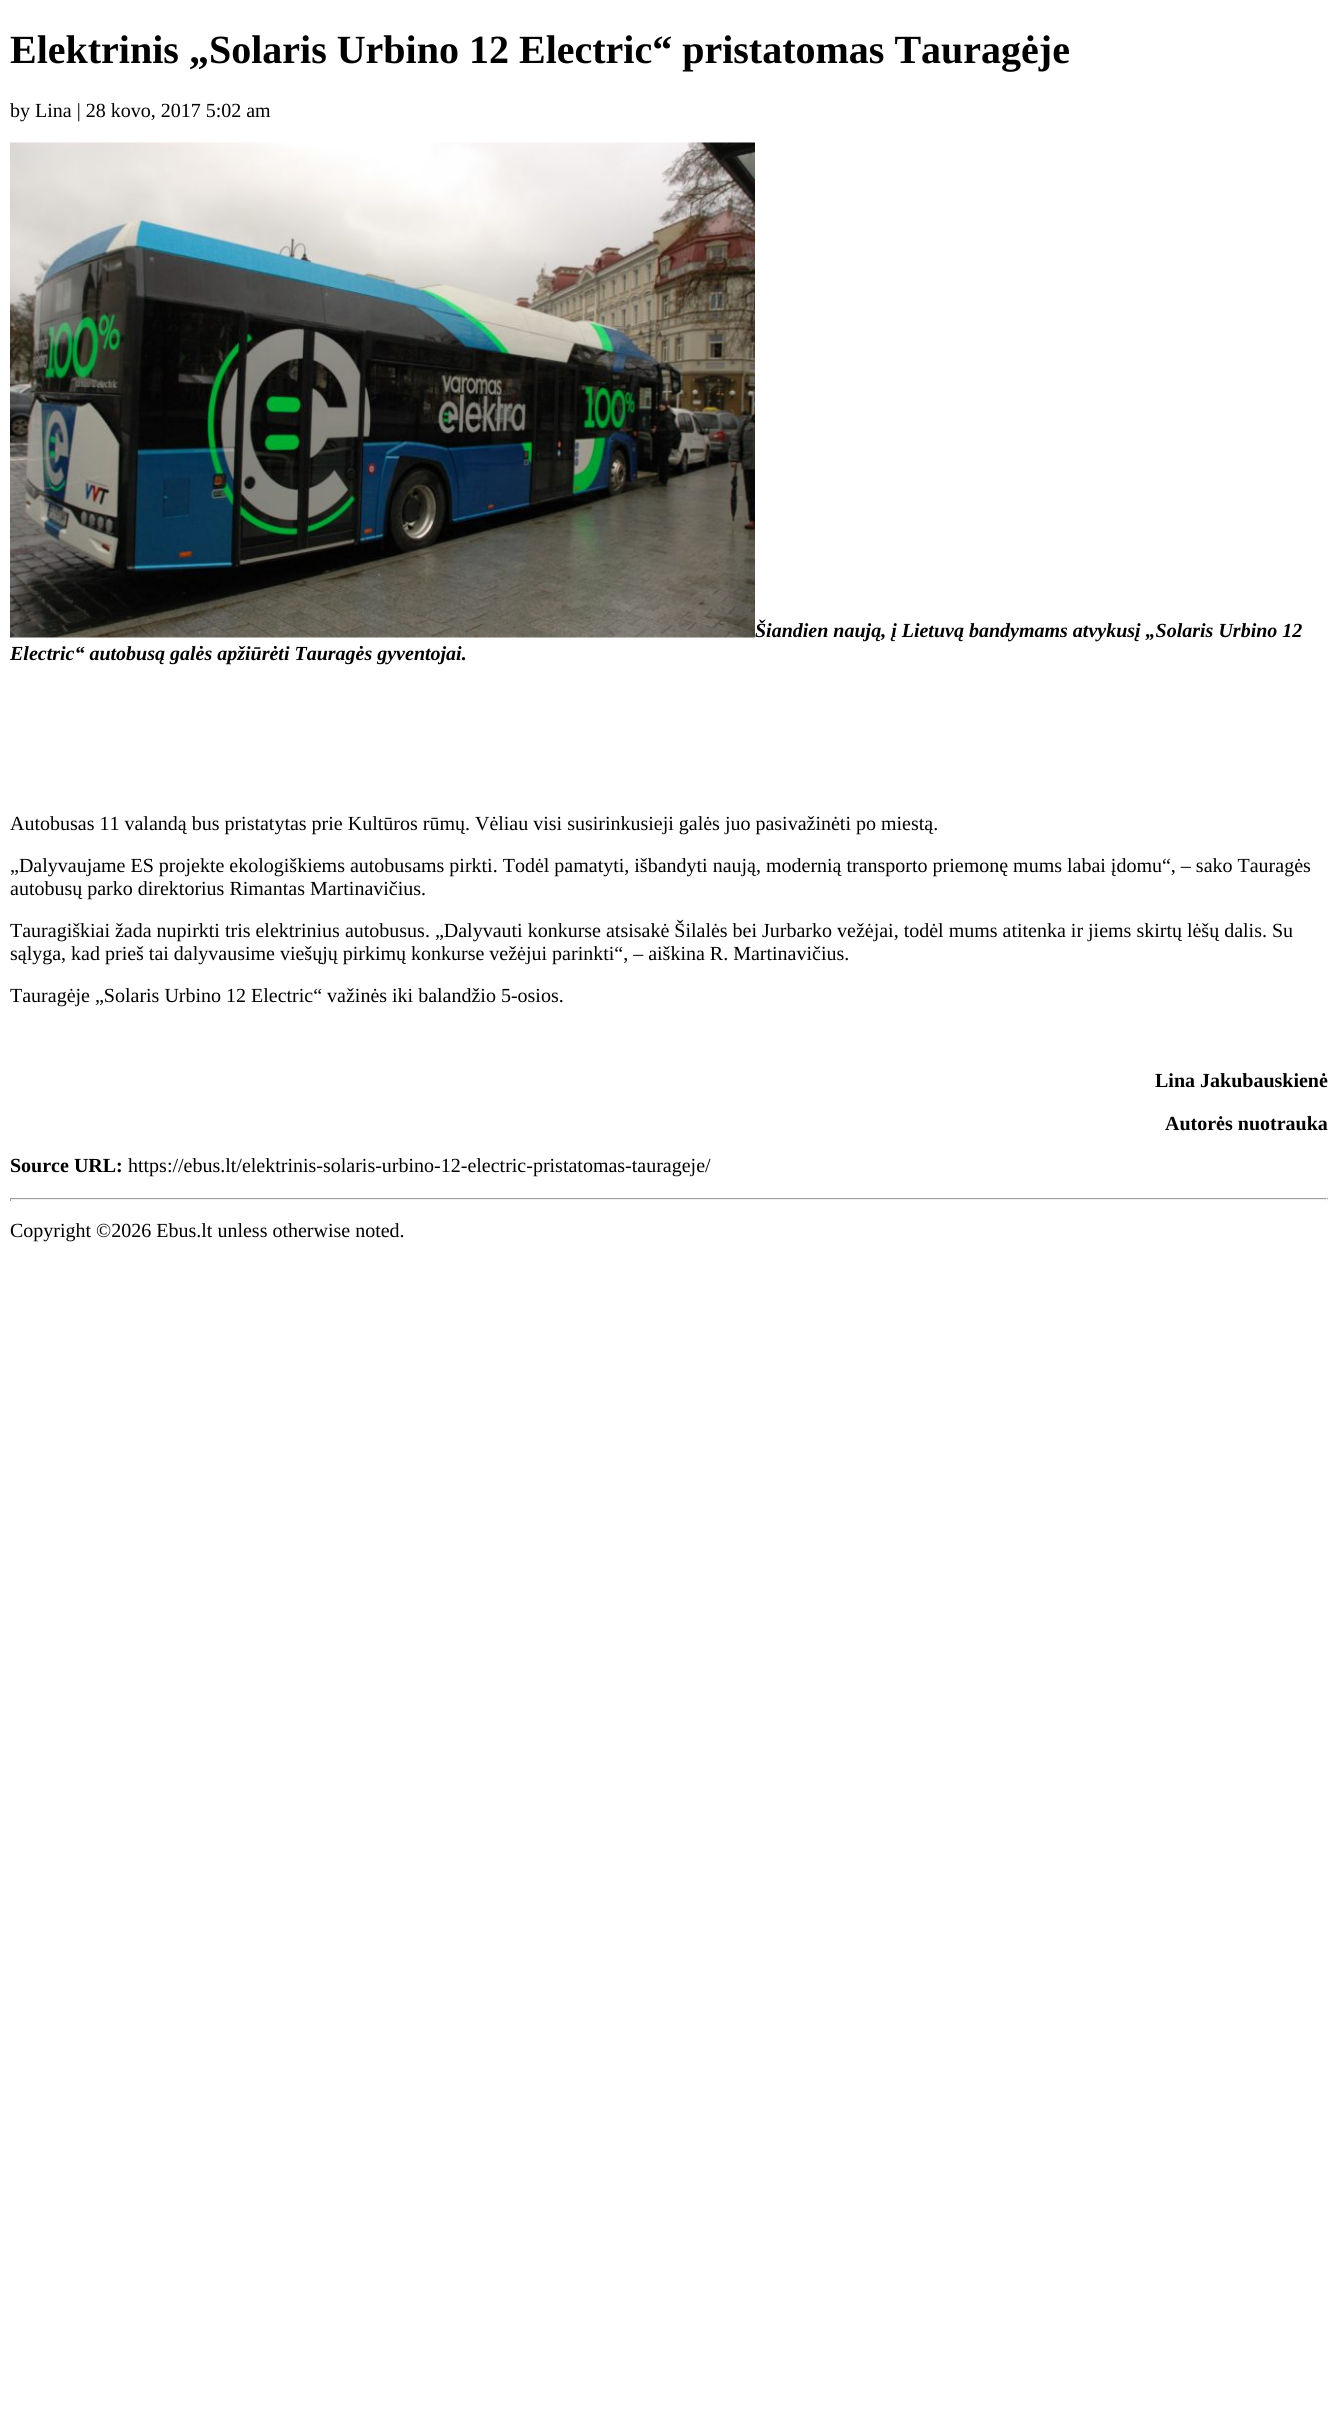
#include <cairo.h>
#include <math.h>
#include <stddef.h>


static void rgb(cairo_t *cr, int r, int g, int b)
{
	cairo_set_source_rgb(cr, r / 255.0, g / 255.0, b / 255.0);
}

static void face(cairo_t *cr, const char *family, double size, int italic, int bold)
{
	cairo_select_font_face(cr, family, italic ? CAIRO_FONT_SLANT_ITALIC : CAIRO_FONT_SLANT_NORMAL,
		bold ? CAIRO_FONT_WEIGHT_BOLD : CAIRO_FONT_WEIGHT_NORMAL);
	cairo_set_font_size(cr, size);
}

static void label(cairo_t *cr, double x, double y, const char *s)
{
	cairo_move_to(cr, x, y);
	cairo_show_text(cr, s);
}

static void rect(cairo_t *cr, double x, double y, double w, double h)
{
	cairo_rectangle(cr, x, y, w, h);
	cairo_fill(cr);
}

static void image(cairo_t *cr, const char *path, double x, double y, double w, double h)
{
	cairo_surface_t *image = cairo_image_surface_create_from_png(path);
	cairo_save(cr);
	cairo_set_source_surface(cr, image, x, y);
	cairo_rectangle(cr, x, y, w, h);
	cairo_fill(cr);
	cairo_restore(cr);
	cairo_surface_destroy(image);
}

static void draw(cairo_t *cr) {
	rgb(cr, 255, 255, 255);
	cairo_paint(cr);
	face(cr, "Liberation Serif", 40, 0, 1);
	rgb(cr, 0, 0, 0);
	label(cr, 10, 63, "Elektrinis „Solaris Urbino 12 Electric“ pristatomas Tauragėje");
	face(cr, "Liberation Serif", 20, 0, 0);
	label(cr, 10, 117, "by Lina | 28 kovo, 2017 5:02 am");
	image(cr, "image0.png", 10, 142, 745, 496);
	face(cr, "Liberation Serif", 20, 1, 1);
	label(cr, 755, 637, "Šiandien naują, į Lietuvą bandymams atvykusį „Solaris Urbino 12");
	label(cr, 10, 660, "Electric“ autobusą galės apžiūrėti Tauragės gyventojai.");
	face(cr, "Liberation Serif", 20, 0, 0);
	label(cr, 10, 830, "Autobusas 11 valandą bus pristatytas prie Kultūros rūmų. Vėliau visi susirinkusieji galės juo pasivažinėti po miestą.");
	label(cr, 10, 872, "„Dalyvaujame ES projekte ekologiškiems autobusams pirkti. Todėl pamatyti, išbandyti naują, modernią transporto priemonę mums labai įdomu“, – sako Tauragės");
	label(cr, 10, 895, "autobusų parko direktorius Rimantas Martinavičius.");
	label(cr, 10, 937, "Tauragiškiai žada nupirkti tris elektrinius autobusus. „Dalyvauti konkurse atsisakė Šilalės bei Jurbarko vežėjai, todėl mums atitenka ir jiems skirtų lėšų dalis. Su");
	label(cr, 10, 960, "sąlyga, kad prieš tai dalyvausime viešųjų pirkimų konkurse vežėjui parinkti“, – aiškina R. Martinavičius.");
	label(cr, 10, 1002, "Tauragėje „Solaris Urbino 12 Electric“ važinės iki balandžio 5-osios.");
	face(cr, "Liberation Serif", 20, 0, 1);
	label(cr, 1155, 1087, "Lina Jakubauskienė");
	label(cr, 1165, 1130, "Autorės nuotrauka");
	label(cr, 10, 1172, "Source URL:");
	face(cr, "Liberation Serif", 20, 0, 0);
	label(cr, 128, 1172, "https://ebus.lt/elektrinis-solaris-urbino-12-electric-pristatomas-taurageje/");
	rgb(cr, 159, 159, 159);
	rect(cr, 10, 1198, 1318, 1);
	rgb(cr, 238, 238, 238);
	rect(cr, 1326, 1198, 1, 3);
	rect(cr, 10, 1199, 1318, 1);
	rgb(cr, 159, 159, 159);
	rect(cr, 10, 1198, 1, 3);
	rgb(cr, 0, 0, 0);
	label(cr, 10, 1237, "Copyright ©2026 Ebus.lt unless otherwise noted.");
}

int main(void) {
	cairo_surface_t *surface = cairo_image_surface_create(CAIRO_FORMAT_RGB24, 1337, 2427);
	cairo_t *cr = cairo_create(surface);
	cairo_font_options_t *options = cairo_font_options_create();
	cairo_font_options_set_hint_metrics(options, CAIRO_HINT_METRICS_OFF);
	cairo_font_options_set_hint_style(options, CAIRO_HINT_STYLE_NONE);
	cairo_set_font_options(cr, options);
	cairo_set_miter_limit(cr, 4);
	draw(cr);
	cairo_surface_write_to_png(surface, "render.png");
	cairo_font_options_destroy(options);
	cairo_destroy(cr);
	cairo_surface_destroy(surface);
	return 0;
}
